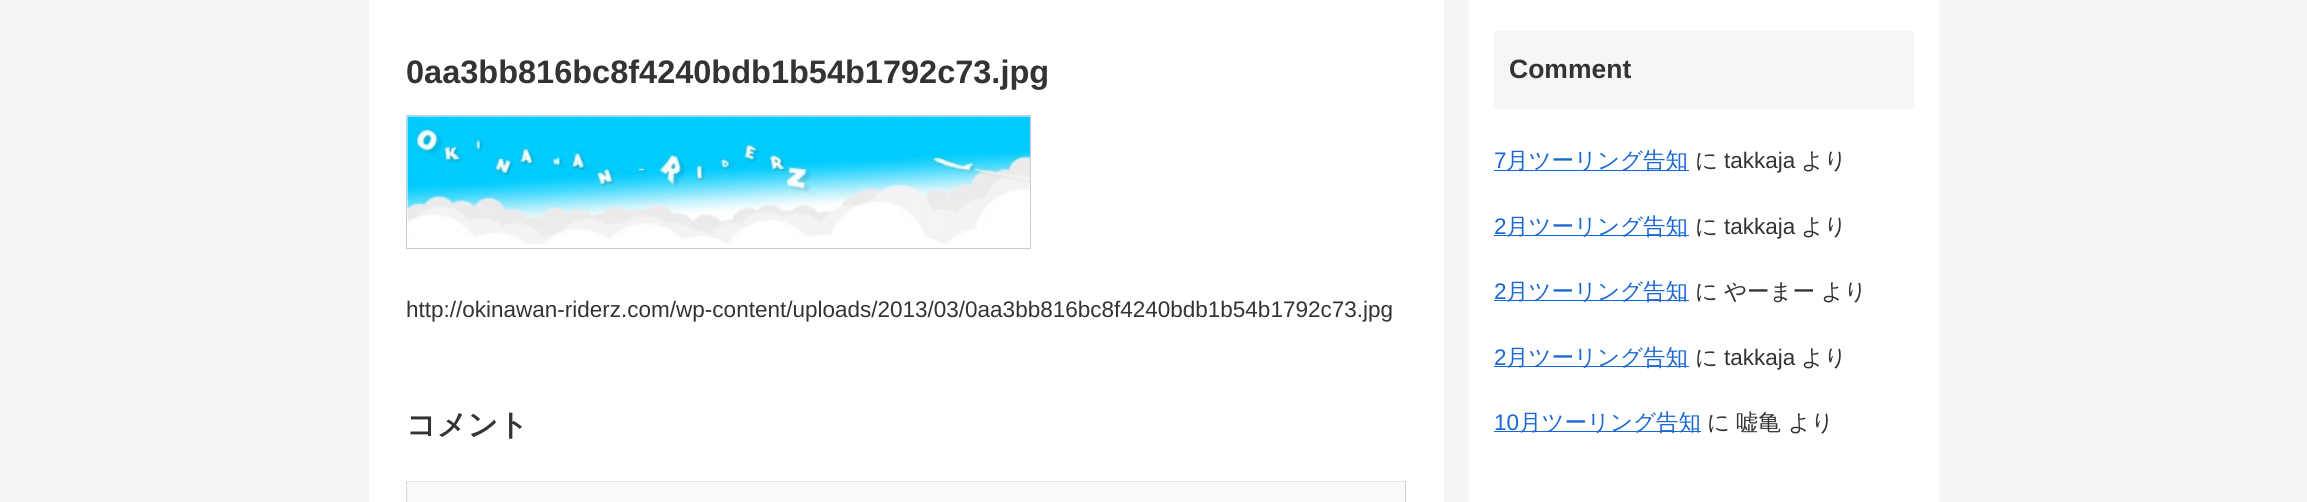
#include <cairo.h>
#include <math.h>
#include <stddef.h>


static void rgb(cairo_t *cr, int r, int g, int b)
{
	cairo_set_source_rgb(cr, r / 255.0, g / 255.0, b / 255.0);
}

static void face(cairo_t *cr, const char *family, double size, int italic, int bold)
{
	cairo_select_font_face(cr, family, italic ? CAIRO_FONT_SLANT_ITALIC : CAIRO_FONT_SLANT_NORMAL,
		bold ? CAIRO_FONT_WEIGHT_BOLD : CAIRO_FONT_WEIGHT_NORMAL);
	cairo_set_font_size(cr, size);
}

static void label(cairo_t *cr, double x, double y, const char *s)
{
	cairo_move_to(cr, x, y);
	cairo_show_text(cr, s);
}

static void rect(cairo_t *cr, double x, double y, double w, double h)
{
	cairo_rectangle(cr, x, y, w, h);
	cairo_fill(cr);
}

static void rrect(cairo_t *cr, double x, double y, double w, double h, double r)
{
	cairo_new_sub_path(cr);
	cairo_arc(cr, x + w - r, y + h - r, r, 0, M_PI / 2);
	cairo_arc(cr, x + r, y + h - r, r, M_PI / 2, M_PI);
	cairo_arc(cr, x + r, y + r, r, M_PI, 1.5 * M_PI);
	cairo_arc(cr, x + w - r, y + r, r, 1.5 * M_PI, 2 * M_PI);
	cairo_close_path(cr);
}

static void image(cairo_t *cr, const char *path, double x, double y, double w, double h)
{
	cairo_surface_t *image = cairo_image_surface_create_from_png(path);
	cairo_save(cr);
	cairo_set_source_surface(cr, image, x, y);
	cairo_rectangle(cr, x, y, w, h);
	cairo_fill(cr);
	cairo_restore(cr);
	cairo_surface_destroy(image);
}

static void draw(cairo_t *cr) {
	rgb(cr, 244, 245, 247);
	cairo_paint(cr);
	rgb(cr, 255, 255, 255);
	rect(cr, 369, 0, 1075, 502);
	face(cr, "Liberation Sans", 32.5, 0, 1);
	rgb(cr, 51, 51, 51);
	label(cr, 406, 83, "0aa3bb816bc8f4240bdb1b54b1792c73.jpg");
	cairo_rectangle(cr, 406.5, 115.5, 624, 133);
	rgb(cr, 204, 204, 204);
	cairo_set_line_width(cr, 1);
	cairo_stroke(cr);
	image(cr, "image0.png", 407, 116, 623, 129);
	face(cr, "Liberation Sans", 22.5, 0, 0);
	rgb(cr, 51, 51, 51);
	label(cr, 406, 317, "http://okinawan-riderz.com/wp-content/uploads/2013/03/0aa3bb816bc8f4240bdb1b54b1792c73.jpg");
	face(cr, "WenQuanYi Zen Hei", 30, 0, 1);
	label(cr, 406, 435, "コメント");
	rgb(cr, 249, 249, 249);
	rect(cr, 407, 482, 998, 20);
	rgb(cr, 227, 227, 227);
	rect(cr, 406, 481, 1000, 1);
	rgb(cr, 206, 206, 206);
	rect(cr, 1405, 481, 1, 21);
	rgb(cr, 214, 214, 214);
	rect(cr, 406, 481, 1, 21);
	rgb(cr, 255, 255, 255);
	rect(cr, 1469, 0, 470, 502);
	rgb(cr, 245, 246, 247);
	rrect(cr, 1494, 31, 420, 78, 2.5);
	cairo_fill(cr);
	face(cr, "Liberation Sans", 26.5, 0, 1);
	rgb(cr, 51, 51, 51);
	label(cr, 1509, 78, "Comment");
	face(cr, "Liberation Sans", 22.5, 0, 0);
	rgb(cr, 25, 103, 210);
	label(cr, 1494, 168, "7");
	rect(cr, 1494, 170, 195, 1);
	face(cr, "WenQuanYi Zen Hei Medium", 22.5, 0, 0);
	label(cr, 1506, 168, "月ツーリング告知");
	rgb(cr, 51, 51, 51);
	label(cr, 1695, 168, "に");
	face(cr, "Liberation Sans", 22.5, 0, 0);
	label(cr, 1724, 168, "takkaja");
	face(cr, "WenQuanYi Zen Hei Medium", 22.5, 0, 0);
	label(cr, 1801, 168, "より");
	face(cr, "Liberation Sans", 22.5, 0, 0);
	rgb(cr, 25, 103, 210);
	label(cr, 1494, 234, "2");
	rect(cr, 1494, 235, 195, 1);
	face(cr, "WenQuanYi Zen Hei Medium", 22.5, 0, 0);
	label(cr, 1506, 234, "月ツーリング告知");
	rgb(cr, 51, 51, 51);
	label(cr, 1695, 234, "に");
	face(cr, "Liberation Sans", 22.5, 0, 0);
	label(cr, 1724, 234, "takkaja");
	face(cr, "WenQuanYi Zen Hei Medium", 22.5, 0, 0);
	label(cr, 1801, 234, "より");
	face(cr, "Liberation Sans", 22.5, 0, 0);
	rgb(cr, 25, 103, 210);
	label(cr, 1494, 299, "2");
	rect(cr, 1494, 300, 195, 1);
	face(cr, "WenQuanYi Zen Hei Medium", 22.5, 0, 0);
	label(cr, 1506, 299, "月ツーリング告知");
	rgb(cr, 51, 51, 51);
	label(cr, 1695, 299, "に");
	label(cr, 1724, 299, "やーまー");
	label(cr, 1821, 299, "より");
	face(cr, "Liberation Sans", 22.5, 0, 0);
	rgb(cr, 25, 103, 210);
	label(cr, 1494, 365, "2");
	rect(cr, 1494, 366, 195, 1);
	face(cr, "WenQuanYi Zen Hei Medium", 22.5, 0, 0);
	label(cr, 1506, 365, "月ツーリング告知");
	rgb(cr, 51, 51, 51);
	label(cr, 1695, 365, "に");
	face(cr, "Liberation Sans", 22.5, 0, 0);
	label(cr, 1724, 365, "takkaja");
	face(cr, "WenQuanYi Zen Hei Medium", 22.5, 0, 0);
	label(cr, 1801, 365, "より");
	face(cr, "Liberation Sans", 22.5, 0, 0);
	rgb(cr, 25, 103, 210);
	label(cr, 1494, 430, "10");
	rect(cr, 1494, 431, 207, 1);
	face(cr, "WenQuanYi Zen Hei Medium", 22.5, 0, 0);
	label(cr, 1519, 430, "月ツーリング告知");
	rgb(cr, 51, 51, 51);
	label(cr, 1707, 430, "に");
	label(cr, 1736, 430, "嘘亀");
	label(cr, 1788, 430, "より");
}

int main(void) {
	cairo_surface_t *surface = cairo_image_surface_create(CAIRO_FORMAT_RGB24, 2307, 502);
	cairo_t *cr = cairo_create(surface);
	cairo_font_options_t *options = cairo_font_options_create();
	cairo_font_options_set_hint_metrics(options, CAIRO_HINT_METRICS_OFF);
	cairo_font_options_set_hint_style(options, CAIRO_HINT_STYLE_NONE);
	cairo_set_font_options(cr, options);
	cairo_set_miter_limit(cr, 4);
	draw(cr);
	cairo_surface_write_to_png(surface, "render.png");
	cairo_font_options_destroy(options);
	cairo_destroy(cr);
	cairo_surface_destroy(surface);
	return 0;
}
